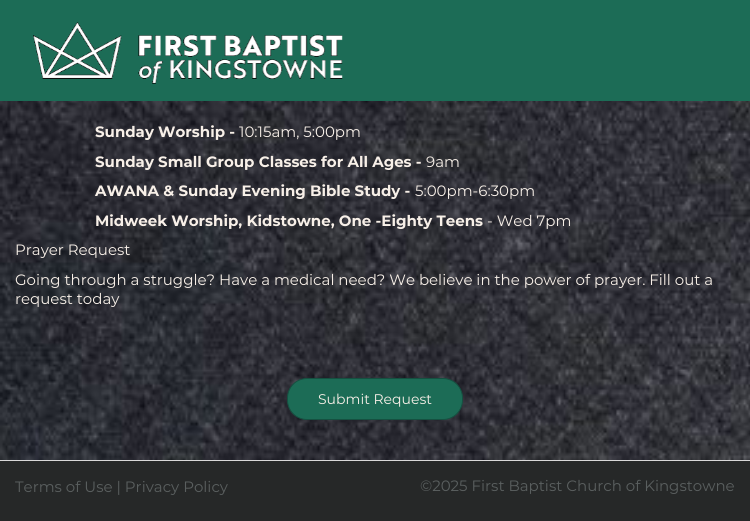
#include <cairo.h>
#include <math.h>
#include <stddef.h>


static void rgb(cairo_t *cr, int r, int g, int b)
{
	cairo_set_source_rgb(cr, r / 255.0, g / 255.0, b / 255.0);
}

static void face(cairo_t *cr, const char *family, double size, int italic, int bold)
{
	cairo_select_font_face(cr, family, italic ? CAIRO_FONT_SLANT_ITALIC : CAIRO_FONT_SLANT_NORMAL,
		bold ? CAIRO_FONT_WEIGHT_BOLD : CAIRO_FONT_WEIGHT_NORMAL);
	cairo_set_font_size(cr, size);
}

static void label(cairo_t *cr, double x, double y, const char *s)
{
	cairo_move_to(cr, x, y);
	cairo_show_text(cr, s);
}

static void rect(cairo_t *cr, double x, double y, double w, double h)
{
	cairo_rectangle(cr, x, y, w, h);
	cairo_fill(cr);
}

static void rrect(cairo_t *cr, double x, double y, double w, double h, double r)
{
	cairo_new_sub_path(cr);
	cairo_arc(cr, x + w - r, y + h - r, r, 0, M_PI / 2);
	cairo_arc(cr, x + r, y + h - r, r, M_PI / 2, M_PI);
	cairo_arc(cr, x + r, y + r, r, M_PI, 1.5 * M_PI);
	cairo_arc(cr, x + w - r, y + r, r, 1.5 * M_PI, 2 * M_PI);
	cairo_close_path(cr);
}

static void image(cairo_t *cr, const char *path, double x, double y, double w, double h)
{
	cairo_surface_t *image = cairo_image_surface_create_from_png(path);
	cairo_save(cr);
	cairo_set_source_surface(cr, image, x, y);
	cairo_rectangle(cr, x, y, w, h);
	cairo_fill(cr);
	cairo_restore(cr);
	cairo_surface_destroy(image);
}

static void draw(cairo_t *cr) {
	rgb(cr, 255, 255, 255);
	cairo_paint(cr);
	rgb(cr, 28, 108, 86);
	rect(cr, 0, 0, 750, 101);
	image(cr, "image0.png", 33, 22, 310, 62);
	image(cr, "image1.png", 0, 101, 750, 359);
	face(cr, "Montserrat", 15, 0, 1);
	rgb(cr, 248, 240, 232);
	label(cr, 95, 137, "Sunday Worship -");
	face(cr, "Montserrat", 15, 0, 0);
	label(cr, 239, 137, "10:15am, 5:00pm");
	face(cr, "Montserrat", 15, 0, 1);
	label(cr, 95, 167, "Sunday Small Group Classes for All Ages -");
	face(cr, "Montserrat", 15, 0, 0);
	label(cr, 426, 167, "9am");
	face(cr, "Montserrat", 15, 0, 1);
	label(cr, 95, 196, "AWANA & Sunday Evening Bible Study -");
	face(cr, "Montserrat", 15, 0, 0);
	label(cr, 415, 196, "5:00pm-6:30pm");
	face(cr, "Montserrat", 15, 0, 1);
	label(cr, 95, 226, "Midweek Worship, Kidstowne, One -Eighty Teens");
	face(cr, "Montserrat", 15, 0, 0);
	label(cr, 487, 226, "- Wed 7pm");
	label(cr, 15, 255, "Prayer Request");
	label(cr, 15, 285, "Going through a struggle? Have a medical need? We believe in the power of prayer. Fill out a");
	label(cr, 15, 304, "request today");
	rgb(cr, 28, 108, 86);
	rrect(cr, 287.5, 378.5, 175, 41, 19.5);
	cairo_fill_preserve(cr);
	rgb(cr, 21, 81, 65);
	cairo_set_line_width(cr, 1);
	cairo_stroke(cr);
	face(cr, "Montserrat", 14, 0, 0);
	rgb(cr, 248, 240, 232);
	label(cr, 318, 404, "Submit Request");
	rgb(cr, 38, 40, 40);
	rect(cr, 0, 461, 750, 60);
	rgb(cr, 217, 217, 217);
	rect(cr, 0, 460, 750, 1);
	face(cr, "Montserrat", 15, 0, 0);
	rgb(cr, 90, 95, 95);
	label(cr, 15, 492, "Terms of Use | Privacy Policy");
	label(cr, 420, 491, "©2025 First Baptist Church of Kingstowne");
}

int main(void) {
	cairo_surface_t *surface = cairo_image_surface_create(CAIRO_FORMAT_RGB24, 750, 521);
	cairo_t *cr = cairo_create(surface);
	cairo_font_options_t *options = cairo_font_options_create();
	cairo_font_options_set_hint_metrics(options, CAIRO_HINT_METRICS_OFF);
	cairo_font_options_set_hint_style(options, CAIRO_HINT_STYLE_NONE);
	cairo_set_font_options(cr, options);
	cairo_set_miter_limit(cr, 4);
	draw(cr);
	cairo_surface_write_to_png(surface, "render.png");
	cairo_font_options_destroy(options);
	cairo_destroy(cr);
	cairo_surface_destroy(surface);
	return 0;
}
